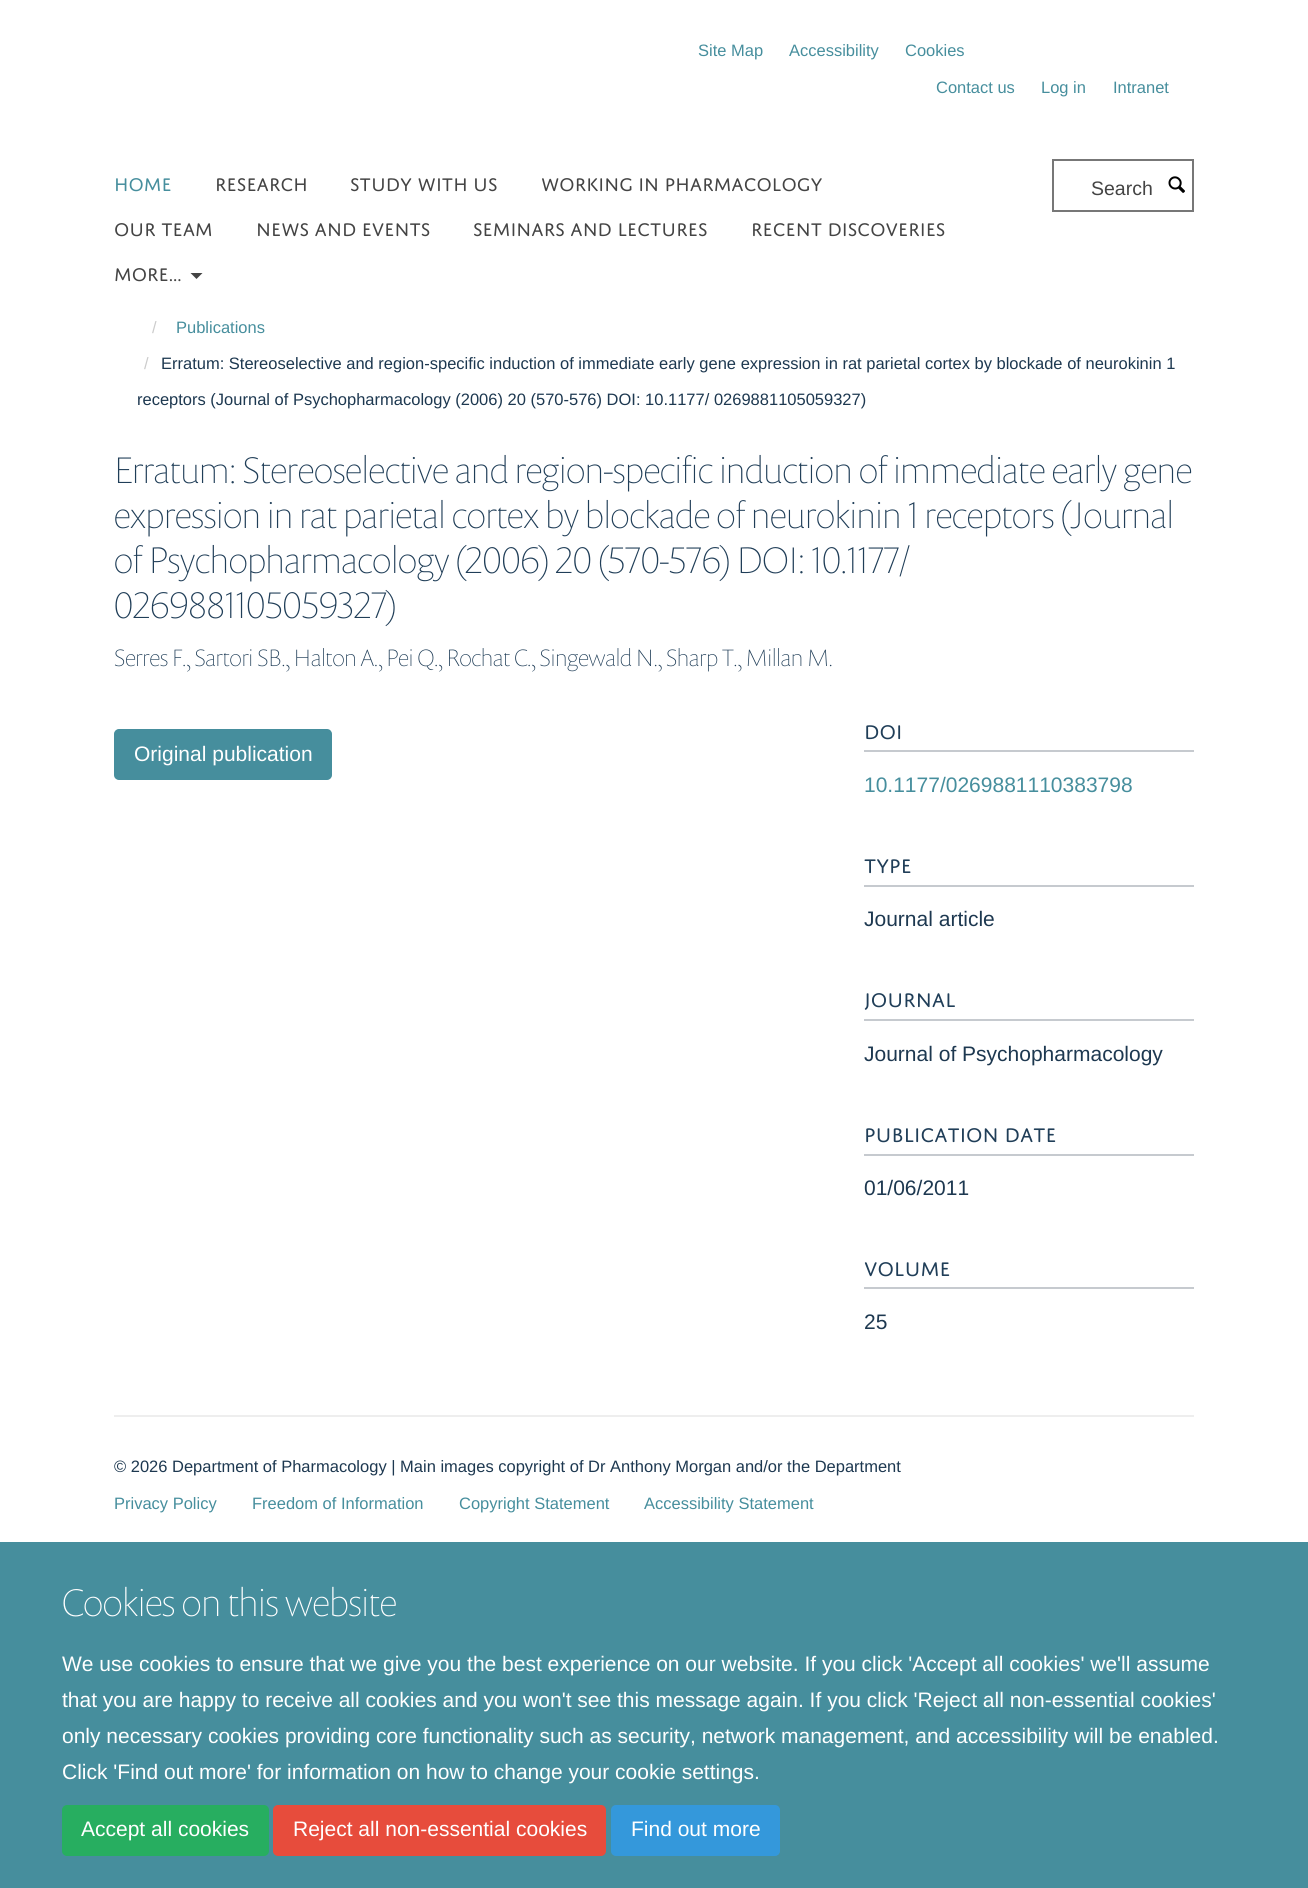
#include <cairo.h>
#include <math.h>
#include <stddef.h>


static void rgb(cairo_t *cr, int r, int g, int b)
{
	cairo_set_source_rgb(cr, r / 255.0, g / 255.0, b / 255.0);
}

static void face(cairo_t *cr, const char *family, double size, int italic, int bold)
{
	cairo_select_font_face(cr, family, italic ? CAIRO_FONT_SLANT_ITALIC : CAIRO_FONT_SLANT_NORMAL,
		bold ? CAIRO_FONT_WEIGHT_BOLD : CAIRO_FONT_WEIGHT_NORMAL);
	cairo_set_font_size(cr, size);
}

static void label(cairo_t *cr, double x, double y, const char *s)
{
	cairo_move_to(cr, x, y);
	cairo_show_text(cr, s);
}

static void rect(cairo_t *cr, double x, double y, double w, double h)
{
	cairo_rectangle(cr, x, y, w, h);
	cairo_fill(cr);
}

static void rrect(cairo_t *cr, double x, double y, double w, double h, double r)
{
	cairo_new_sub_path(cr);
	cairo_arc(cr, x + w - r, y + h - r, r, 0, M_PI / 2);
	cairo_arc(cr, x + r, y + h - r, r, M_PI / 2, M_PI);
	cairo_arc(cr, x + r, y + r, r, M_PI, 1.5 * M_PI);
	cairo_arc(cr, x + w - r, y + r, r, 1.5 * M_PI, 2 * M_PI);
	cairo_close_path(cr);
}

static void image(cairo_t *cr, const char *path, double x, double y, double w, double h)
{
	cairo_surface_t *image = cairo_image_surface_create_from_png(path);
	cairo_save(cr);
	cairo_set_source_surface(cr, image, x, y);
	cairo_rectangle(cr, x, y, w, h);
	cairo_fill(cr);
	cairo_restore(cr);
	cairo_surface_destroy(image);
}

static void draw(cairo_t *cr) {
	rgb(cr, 255, 255, 255);
	cairo_paint(cr);
	face(cr, "Liberation Sans", 16.5, 0, 0);
	rgb(cr, 70, 142, 157);
	label(cr, 698, 56, "Site Map");
	label(cr, 789, 56, "Accessibility");
	label(cr, 905, 56, "Cookies");
	label(cr, 936, 93, "Contact us");
	label(cr, 1041, 93, "Log in");
	label(cr, 1113, 93, "Intranet");
	face(cr, "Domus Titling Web", 19.5, 0, 0);
	label(cr, 114, 191, "HOME");
	rgb(cr, 68, 68, 68);
	label(cr, 215, 191, "RESEARCH");
	label(cr, 350, 191, "STUDY WITH US");
	label(cr, 541, 191, "WORKING IN PHARMACOLOGY");
	label(cr, 114, 236, "OUR TEAM");
	label(cr, 256, 236, "NEWS AND EVENTS");
	label(cr, 473, 236, "SEMINARS AND LECTURES");
	label(cr, 751, 236, "RECENT DISCOVERIES");
	label(cr, 114, 281, "MORE...");
	cairo_new_path(cr);
	cairo_move_to(cr, 190.5, 273);
	cairo_line_to(cr, 202.5, 273);
	cairo_line_to(cr, 196.5, 279);
	cairo_close_path(cr);
	cairo_fill(cr);
	cairo_rectangle(cr, 1053, 160, 140, 51);
	rgb(cr, 119, 119, 119);
	cairo_stroke(cr);
	face(cr, "Liberation Sans", 19.5, 0, 0);
	rgb(cr, 68, 68, 68);
	label(cr, 1091, 195, "Search");
	image(cr, "image0.png", 1168, 176, 17, 17);
	face(cr, "Liberation Sans", 16.5, 0, 0);
	rgb(cr, 204, 204, 204);
	label(cr, 152, 333, "/");
	rgb(cr, 70, 142, 157);
	label(cr, 176, 333, "Publications");
	rgb(cr, 204, 204, 204);
	label(cr, 144, 369, "/");
	rgb(cr, 29, 56, 80);
	label(cr, 161, 369, "Erratum: Stereoselective and region-specific induction of immediate early gene expression in rat parietal cortex by blockade of neurokinin 1");
	label(cr, 137, 405, "receptors (Journal of Psychopharmacology (2006) 20 (570-576) DOI: 10.1177/ 0269881105059327)");
	face(cr, "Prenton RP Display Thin", 37.5, 0, 0);
	rgb(cr, 32, 62, 88);
	label(cr, 114, 483, "Erratum: Stereoselective and region-specific induction of immediate early gene");
	label(cr, 114, 528, "expression in rat parietal cortex by blockade of neurokinin 1 receptors (Journal");
	label(cr, 114, 573, "of Psychopharmacology (2006) 20 (570-576) DOI: 10.1177/");
	label(cr, 114, 618, "0269881105059327)");
	face(cr, "Prenton RP Display Thin", 24, 0, 0);
	label(cr, 114, 666, "Serres F., Sartori SB., Halton A., Pei Q., Rochat C., Singewald N., Sharp T., Millan M.");
	rgb(cr, 70, 142, 157);
	rrect(cr, 115, 730, 216, 49, 4);
	cairo_fill_preserve(cr);
	cairo_stroke(cr);
	face(cr, "Liberation Sans", 21, 0, 0);
	rgb(cr, 255, 255, 255);
	label(cr, 134, 761, "Original publication");
	rgb(cr, 198, 202, 207);
	rect(cr, 864, 750, 330, 2);
	face(cr, "Domus Titling Web", 21, 0, 0);
	rgb(cr, 32, 62, 88);
	label(cr, 864, 739, "DOI");
	face(cr, "Liberation Sans", 21, 0, 0);
	rgb(cr, 70, 142, 157);
	label(cr, 864, 792, "10.1177/0269881110383798");
	rgb(cr, 198, 202, 207);
	rect(cr, 864, 885, 330, 2);
	face(cr, "Domus Titling Web", 21, 0, 0);
	rgb(cr, 32, 62, 88);
	label(cr, 864, 873, "TYPE");
	face(cr, "Liberation Sans", 21, 0, 0);
	rgb(cr, 29, 56, 80);
	label(cr, 864, 926, "Journal article");
	rgb(cr, 198, 202, 207);
	rect(cr, 864, 1019, 330, 2);
	face(cr, "Domus Titling Web", 21, 0, 0);
	rgb(cr, 32, 62, 88);
	label(cr, 864, 1007, "JOURNAL");
	face(cr, "Liberation Sans", 21, 0, 0);
	rgb(cr, 29, 56, 80);
	label(cr, 864, 1061, "Journal of Psychopharmacology");
	rgb(cr, 198, 202, 207);
	rect(cr, 864, 1154, 330, 2);
	face(cr, "Domus Titling Web", 21, 0, 0);
	rgb(cr, 32, 62, 88);
	label(cr, 864, 1142, "PUBLICATION DATE");
	face(cr, "Liberation Sans", 21, 0, 0);
	rgb(cr, 29, 56, 80);
	label(cr, 864, 1195, "01/06/2011");
	rgb(cr, 198, 202, 207);
	rect(cr, 864, 1287, 330, 2);
	face(cr, "Domus Titling Web", 21, 0, 0);
	rgb(cr, 32, 62, 88);
	label(cr, 864, 1276, "VOLUME");
	face(cr, "Liberation Sans", 21, 0, 0);
	rgb(cr, 29, 56, 80);
	label(cr, 864, 1329, "25");
	rgb(cr, 238, 238, 238);
	rect(cr, 114, 1415, 1080, 2);
	face(cr, "Liberation Sans", 16.5, 0, 0);
	rgb(cr, 29, 56, 80);
	label(cr, 114, 1472, "© 2026 Department of Pharmacology | Main images copyright of Dr Anthony Morgan and/or the Department");
	rgb(cr, 70, 142, 157);
	label(cr, 114, 1509, "Privacy Policy");
	label(cr, 252, 1509, "Freedom of Information");
	label(cr, 459, 1509, "Copyright Statement");
	label(cr, 644, 1509, "Accessibility Statement");
	rect(cr, 0, 1542, 1308, 346);
	face(cr, "Prenton RP Display Thin", 39, 0, 0);
	rgb(cr, 255, 255, 255);
	label(cr, 62, 1616, "Cookies on this website");
	face(cr, "Liberation Sans", 21, 0, 0);
	label(cr, 62, 1671, "We use cookies to ensure that we give you the best experience on our website. If you click 'Accept all cookies' we'll assume");
	label(cr, 62, 1707, "that you are happy to receive all cookies and you won't see this message again. If you click 'Reject all non-essential cookies'");
	label(cr, 62, 1743, "only necessary cookies providing core functionality such as security, network management, and accessibility will be enabled.");
	label(cr, 62, 1779, "Click 'Find out more' for information on how to change your cookie settings.");
	rgb(cr, 39, 174, 96);
	rrect(cr, 63, 1806, 205, 49, 4);
	cairo_fill_preserve(cr);
	cairo_stroke(cr);
	rgb(cr, 255, 255, 255);
	label(cr, 81, 1836, "Accept all cookies");
	rgb(cr, 231, 76, 60);
	rrect(cr, 274, 1806, 331, 49, 4);
	cairo_fill_preserve(cr);
	cairo_stroke(cr);
	rgb(cr, 255, 255, 255);
	label(cr, 293, 1836, "Reject all non-essential cookies");
	rgb(cr, 52, 152, 219);
	rrect(cr, 612, 1806, 167, 49, 4);
	cairo_fill_preserve(cr);
	cairo_stroke(cr);
	rgb(cr, 255, 255, 255);
	label(cr, 631, 1836, "Find out more");
}

int main(void) {
	cairo_surface_t *surface = cairo_image_surface_create(CAIRO_FORMAT_RGB24, 1308, 1888);
	cairo_t *cr = cairo_create(surface);
	cairo_font_options_t *options = cairo_font_options_create();
	cairo_font_options_set_hint_metrics(options, CAIRO_HINT_METRICS_OFF);
	cairo_font_options_set_hint_style(options, CAIRO_HINT_STYLE_NONE);
	cairo_set_font_options(cr, options);
	cairo_set_miter_limit(cr, 4);
	draw(cr);
	cairo_surface_write_to_png(surface, "render.png");
	cairo_font_options_destroy(options);
	cairo_destroy(cr);
	cairo_surface_destroy(surface);
	return 0;
}
